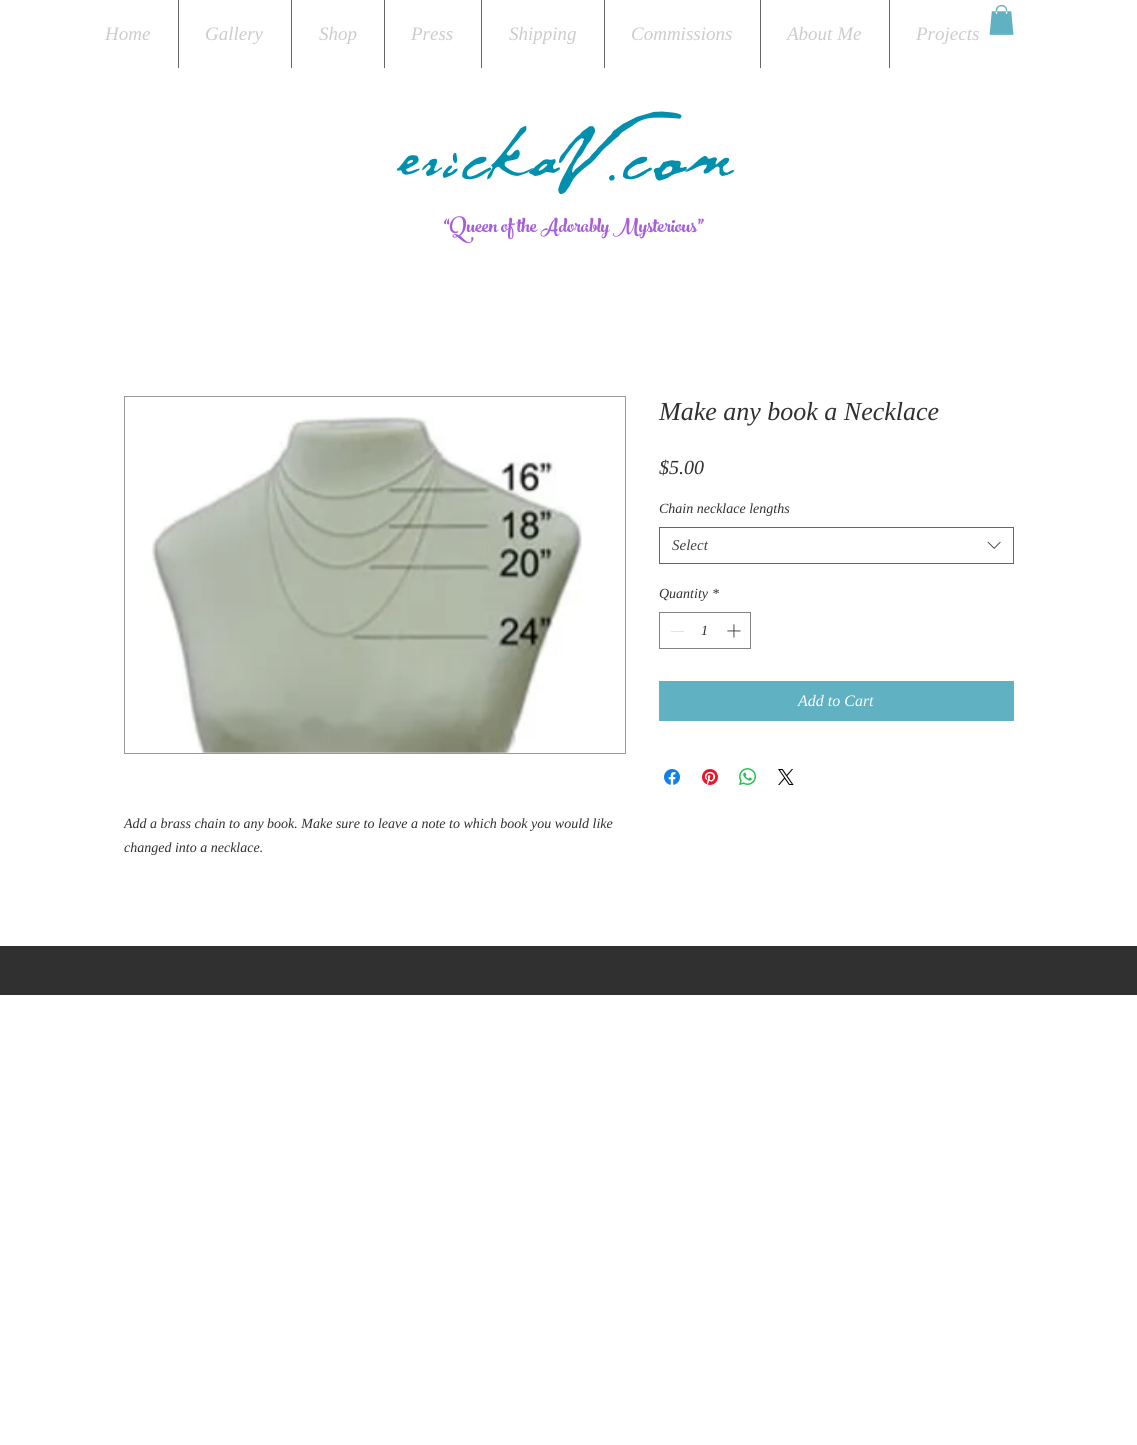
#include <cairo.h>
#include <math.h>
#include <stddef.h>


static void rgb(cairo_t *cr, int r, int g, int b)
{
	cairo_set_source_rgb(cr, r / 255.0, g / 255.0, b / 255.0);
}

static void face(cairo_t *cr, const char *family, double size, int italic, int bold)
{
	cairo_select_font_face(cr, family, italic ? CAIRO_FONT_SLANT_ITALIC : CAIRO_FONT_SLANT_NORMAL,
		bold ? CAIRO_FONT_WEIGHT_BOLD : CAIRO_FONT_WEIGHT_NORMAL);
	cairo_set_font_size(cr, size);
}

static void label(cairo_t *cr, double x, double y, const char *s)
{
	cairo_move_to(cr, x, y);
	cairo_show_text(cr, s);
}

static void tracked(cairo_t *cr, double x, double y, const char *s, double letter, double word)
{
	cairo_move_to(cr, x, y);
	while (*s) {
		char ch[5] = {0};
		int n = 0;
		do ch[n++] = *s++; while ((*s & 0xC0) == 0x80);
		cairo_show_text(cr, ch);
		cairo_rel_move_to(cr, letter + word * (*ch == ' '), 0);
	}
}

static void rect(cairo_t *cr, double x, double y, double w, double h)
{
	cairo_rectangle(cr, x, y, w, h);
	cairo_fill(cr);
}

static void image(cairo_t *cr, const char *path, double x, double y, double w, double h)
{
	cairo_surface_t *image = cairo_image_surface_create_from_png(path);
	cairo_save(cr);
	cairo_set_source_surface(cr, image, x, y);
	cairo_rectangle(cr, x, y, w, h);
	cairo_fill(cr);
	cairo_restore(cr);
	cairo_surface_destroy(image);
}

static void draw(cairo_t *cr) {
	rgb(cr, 255, 255, 255);
	cairo_paint(cr);
	face(cr, "Liberation Serif", 19, 1, 0);
	rgb(cr, 204, 204, 204);
	label(cr, 105, 40, "Home");
	rgb(cr, 102, 102, 102);
	rect(cr, 178, 0, 1, 68);
	rgb(cr, 204, 204, 204);
	label(cr, 205, 40, "Gallery");
	rgb(cr, 102, 102, 102);
	rect(cr, 291, 0, 1, 68);
	rgb(cr, 204, 204, 204);
	label(cr, 319, 40, "Shop");
	rgb(cr, 102, 102, 102);
	rect(cr, 384, 0, 1, 68);
	rgb(cr, 204, 204, 204);
	label(cr, 411, 40, "Press");
	rgb(cr, 102, 102, 102);
	rect(cr, 481, 0, 1, 68);
	rgb(cr, 204, 204, 204);
	label(cr, 509, 40, "Shipping");
	rgb(cr, 102, 102, 102);
	rect(cr, 604, 0, 1, 68);
	rgb(cr, 204, 204, 204);
	label(cr, 631, 40, "Commissions");
	rgb(cr, 102, 102, 102);
	rect(cr, 760, 0, 1, 68);
	rgb(cr, 204, 204, 204);
	label(cr, 787, 40, "About Me");
	rgb(cr, 102, 102, 102);
	rect(cr, 889, 0, 1, 68);
	rgb(cr, 204, 204, 204);
	label(cr, 916, 40, "Projects");
	image(cr, "image0.png", 989, 5, 25, 30);
	face(cr, "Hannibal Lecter", 96, 0, 0);
	rgb(cr, 0, 144, 173);
	tracked(cr, 401, 216, "erickaV.com", 4.75, 0);
	face(cr, "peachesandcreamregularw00", 30, 0, 0);
	rgb(cr, 167, 94, 219);
	label(cr, 444, 232, "“Queen of the Adorably Mysterious”");
	face(cr, "Liberation Serif", 26, 1, 0);
	rgb(cr, 48, 48, 48);
	label(cr, 659, 420, "Make any book a Necklace");
	face(cr, "Liberation Serif", 20, 1, 0);
	label(cr, 659, 474, "$5.00");
	face(cr, "Liberation Serif", 14, 1, 0);
	label(cr, 659, 513, "Chain necklace lengths");
	cairo_rectangle(cr, 659.5, 527.5, 354, 36);
	rgb(cr, 102, 102, 102);
	cairo_set_line_width(cr, 1);
	cairo_stroke(cr);
	face(cr, "Liberation Serif", 15, 1, 0);
	rgb(cr, 68, 68, 68);
	label(cr, 672, 550, "Select");
	image(cr, "image1.png", 987, 541, 14, 8);
	face(cr, "Liberation Serif", 14, 1, 0);
	rgb(cr, 48, 48, 48);
	label(cr, 659, 598, "Quantity");
	label(cr, 712, 598, "*");
	cairo_rectangle(cr, 659.5, 612.5, 91, 36);
	rgb(cr, 131, 131, 131);
	cairo_stroke(cr);
	rgb(cr, 227, 227, 227);
	rect(cr, 671, 631, 13, 1);
	rgb(cr, 48, 48, 48);
	label(cr, 701, 635, "1");
	image(cr, "image2.png", 727, 624, 14, 14);
	rgb(cr, 96, 177, 193);
	rect(cr, 659, 681, 355, 40);
	face(cr, "Liberation Serif", 16, 1, 0);
	rgb(cr, 255, 255, 255);
	label(cr, 798, 706, "Add to Cart");
	image(cr, "image3.png", 664, 769, 16, 16);
	image(cr, "image4.png", 702, 769, 16, 16);
	image(cr, "image5.png", 739, 768, 17, 17);
	image(cr, "image6.png", 778, 769, 16, 16);
	cairo_rectangle(cr, 124.5, 396.5, 501, 357);
	rgb(cr, 153, 153, 153);
	cairo_stroke(cr);
	image(cr, "image7.png", 151, 416, 431, 337);
	face(cr, "Liberation Serif", 14, 1, 0);
	rgb(cr, 48, 48, 48);
	label(cr, 124, 828, "Add a brass chain to any book. Make sure to leave a note to which book you would like");
	label(cr, 124, 852, "changed into a necklace.");
	rect(cr, 0, 946, 1137, 49);
}

int main(void) {
	cairo_surface_t *surface = cairo_image_surface_create(CAIRO_FORMAT_RGB24, 1137, 1445);
	cairo_t *cr = cairo_create(surface);
	cairo_font_options_t *options = cairo_font_options_create();
	cairo_font_options_set_hint_metrics(options, CAIRO_HINT_METRICS_OFF);
	cairo_font_options_set_hint_style(options, CAIRO_HINT_STYLE_NONE);
	cairo_set_font_options(cr, options);
	cairo_set_miter_limit(cr, 4);
	draw(cr);
	cairo_surface_write_to_png(surface, "render.png");
	cairo_font_options_destroy(options);
	cairo_destroy(cr);
	cairo_surface_destroy(surface);
	return 0;
}
